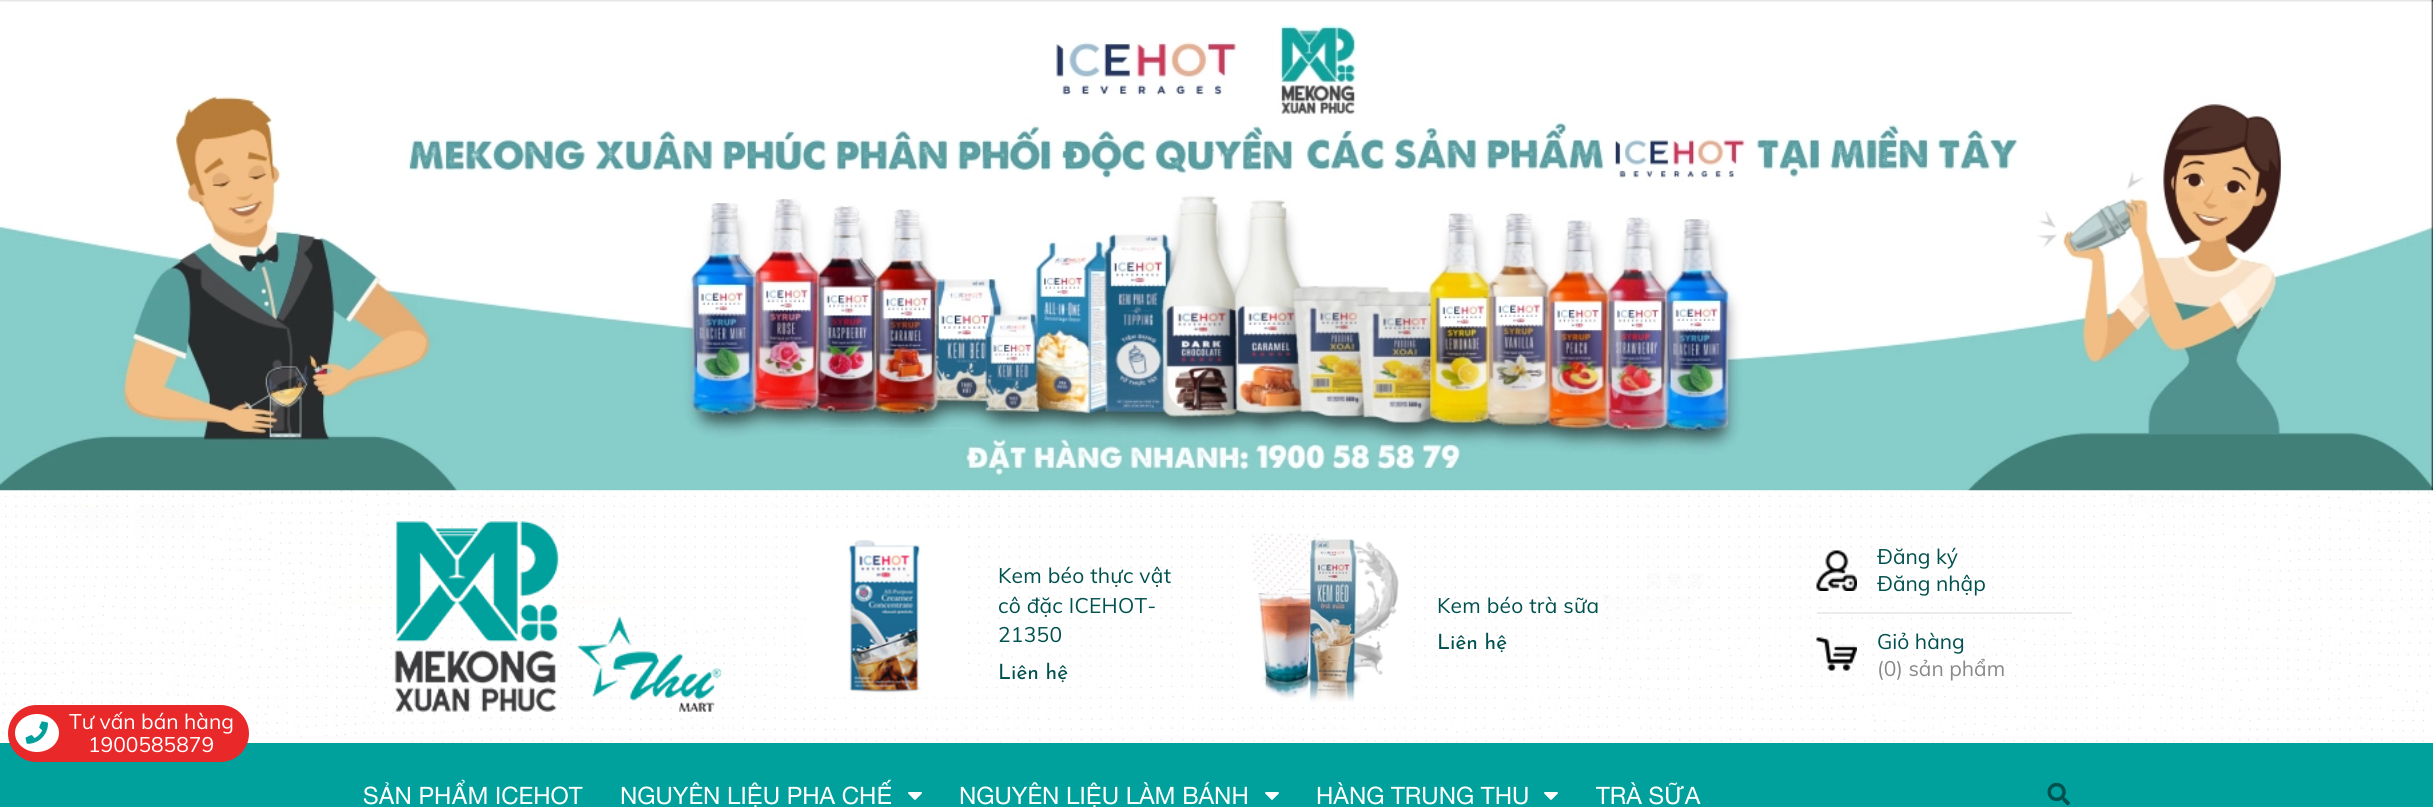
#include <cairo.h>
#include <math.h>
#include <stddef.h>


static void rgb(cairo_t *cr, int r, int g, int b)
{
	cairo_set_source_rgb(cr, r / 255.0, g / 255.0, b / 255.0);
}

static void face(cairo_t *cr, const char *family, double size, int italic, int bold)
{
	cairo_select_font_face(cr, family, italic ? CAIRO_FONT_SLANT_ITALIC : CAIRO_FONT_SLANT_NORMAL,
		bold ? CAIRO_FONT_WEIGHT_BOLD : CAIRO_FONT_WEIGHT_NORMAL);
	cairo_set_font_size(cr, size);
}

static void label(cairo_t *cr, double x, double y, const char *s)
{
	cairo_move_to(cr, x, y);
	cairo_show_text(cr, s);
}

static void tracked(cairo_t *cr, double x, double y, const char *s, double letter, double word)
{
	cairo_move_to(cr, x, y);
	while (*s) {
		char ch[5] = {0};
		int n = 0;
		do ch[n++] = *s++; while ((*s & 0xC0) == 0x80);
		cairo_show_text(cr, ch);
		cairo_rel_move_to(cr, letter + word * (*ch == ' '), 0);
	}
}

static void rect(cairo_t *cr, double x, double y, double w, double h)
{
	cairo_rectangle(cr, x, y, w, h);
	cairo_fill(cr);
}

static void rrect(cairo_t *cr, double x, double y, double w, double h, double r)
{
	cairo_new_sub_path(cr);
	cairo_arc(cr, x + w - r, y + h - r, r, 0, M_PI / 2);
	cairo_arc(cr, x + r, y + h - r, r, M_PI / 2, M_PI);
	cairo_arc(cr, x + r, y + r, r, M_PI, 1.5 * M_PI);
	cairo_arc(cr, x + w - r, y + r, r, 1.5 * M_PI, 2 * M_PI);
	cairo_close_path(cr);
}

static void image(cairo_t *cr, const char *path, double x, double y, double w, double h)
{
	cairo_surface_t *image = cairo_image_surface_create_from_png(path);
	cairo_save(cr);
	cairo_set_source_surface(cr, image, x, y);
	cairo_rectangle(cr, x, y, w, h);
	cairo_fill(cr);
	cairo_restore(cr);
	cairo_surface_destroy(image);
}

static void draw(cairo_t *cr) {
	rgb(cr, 255, 255, 255);
	cairo_paint(cr);
	image(cr, "image0.png", 0, 0, 2433, 491);
	image(cr, "image2.png", 0, 490, 2433, 253);
	rgb(cr, 0, 161, 157);
	rect(cr, 0, 743, 2433, 64);
	rgb(cr, 233, 40, 42);
	rrect(cr, 8, 705, 241, 57, 28.5);
	cairo_fill(cr);
	rgb(cr, 255, 255, 255);
	cairo_new_path(cr);
	cairo_move_to(cr, 37, 714);
	cairo_curve_to(cr, 49, 714, 59, 722.5, 59, 733);
	cairo_curve_to(cr, 59, 743.5, 49, 752, 37, 752);
	cairo_curve_to(cr, 25, 752, 15, 743.5, 15, 733);
	cairo_curve_to(cr, 15, 722.5, 25, 714, 37, 714);
	cairo_close_path(cr);
	cairo_fill(cr);
	image(cr, "image1.png", 25, 721, 23, 23);
	face(cr, "Muli", 21, 0, 0);
	label(cr, 69, 729, "Tư vấn bán hàng");
	label(cr, 88, 752, "1900585879");
	image(cr, "image3.png", 394, 521, 328, 191);
	image(cr, "image4.png", 805, 536, 162, 162);
	rgb(cr, 0, 80, 78);
	tracked(cr, 998, 583, "Kem béo thực vật", 0.25, 0);
	tracked(cr, 998, 613, "cô đặc ICEHOT-", 0.25, 0);
	tracked(cr, 998, 642, "21350", 0.25, 0);
	face(cr, "Josefin Sans", 21, 0, 0);
	label(cr, 998, 679, "Liên hệ");
	image(cr, "image5.png", 1240, 533, 167, 169);
	face(cr, "Muli", 21, 0, 0);
	tracked(cr, 1437, 613, "Kem béo trà sữa", 0.25, 0);
	face(cr, "Josefin Sans", 21, 0, 0);
	label(cr, 1437, 649, "Liên hệ");
	rgb(cr, 235, 235, 235);
	rect(cr, 1817, 612, 255, 2);
	image(cr, "image6.png", 1816, 550, 41, 41);
	face(cr, "Muli", 21, 0, 0);
	rgb(cr, 0, 80, 78);
	label(cr, 1877, 564, "Đăng ký");
	label(cr, 1877, 591, "Đăng nhập");
	image(cr, "image7.png", 1816, 637, 41, 34);
	label(cr, 1877, 649, "Giỏ hàng");
	rgb(cr, 137, 137, 137);
	label(cr, 1877, 676, "(0) sản phẩm");
	face(cr, "Helvetica Neue", 24, 0, 0);
	rgb(cr, 255, 255, 255);
	label(cr, 363, 804, "SẢN PHẨM ICEHOT");
	label(cr, 620, 804, "NGUYÊN LIỆU PHA CHẾ");
	image(cr, "image8.png", 908, 792, 14, 8);
	label(cr, 959, 804, "NGUYÊN LIỆU LÀM BÁNH");
	image(cr, "image8.png", 1265, 792, 14, 8);
	label(cr, 1316, 804, "HÀNG TRUNG THU");
	image(cr, "image8.png", 1544, 792, 14, 8);
	label(cr, 1596, 804, "TRÀ SỮA");
	image(cr, "image9.png", 2047, 782, 23, 24);
}

int main(void) {
	cairo_surface_t *surface = cairo_image_surface_create(CAIRO_FORMAT_RGB24, 2433, 807);
	cairo_t *cr = cairo_create(surface);
	cairo_font_options_t *options = cairo_font_options_create();
	cairo_font_options_set_hint_metrics(options, CAIRO_HINT_METRICS_OFF);
	cairo_font_options_set_hint_style(options, CAIRO_HINT_STYLE_NONE);
	cairo_set_font_options(cr, options);
	cairo_set_miter_limit(cr, 4);
	draw(cr);
	cairo_surface_write_to_png(surface, "render.png");
	cairo_font_options_destroy(options);
	cairo_destroy(cr);
	cairo_surface_destroy(surface);
	return 0;
}
